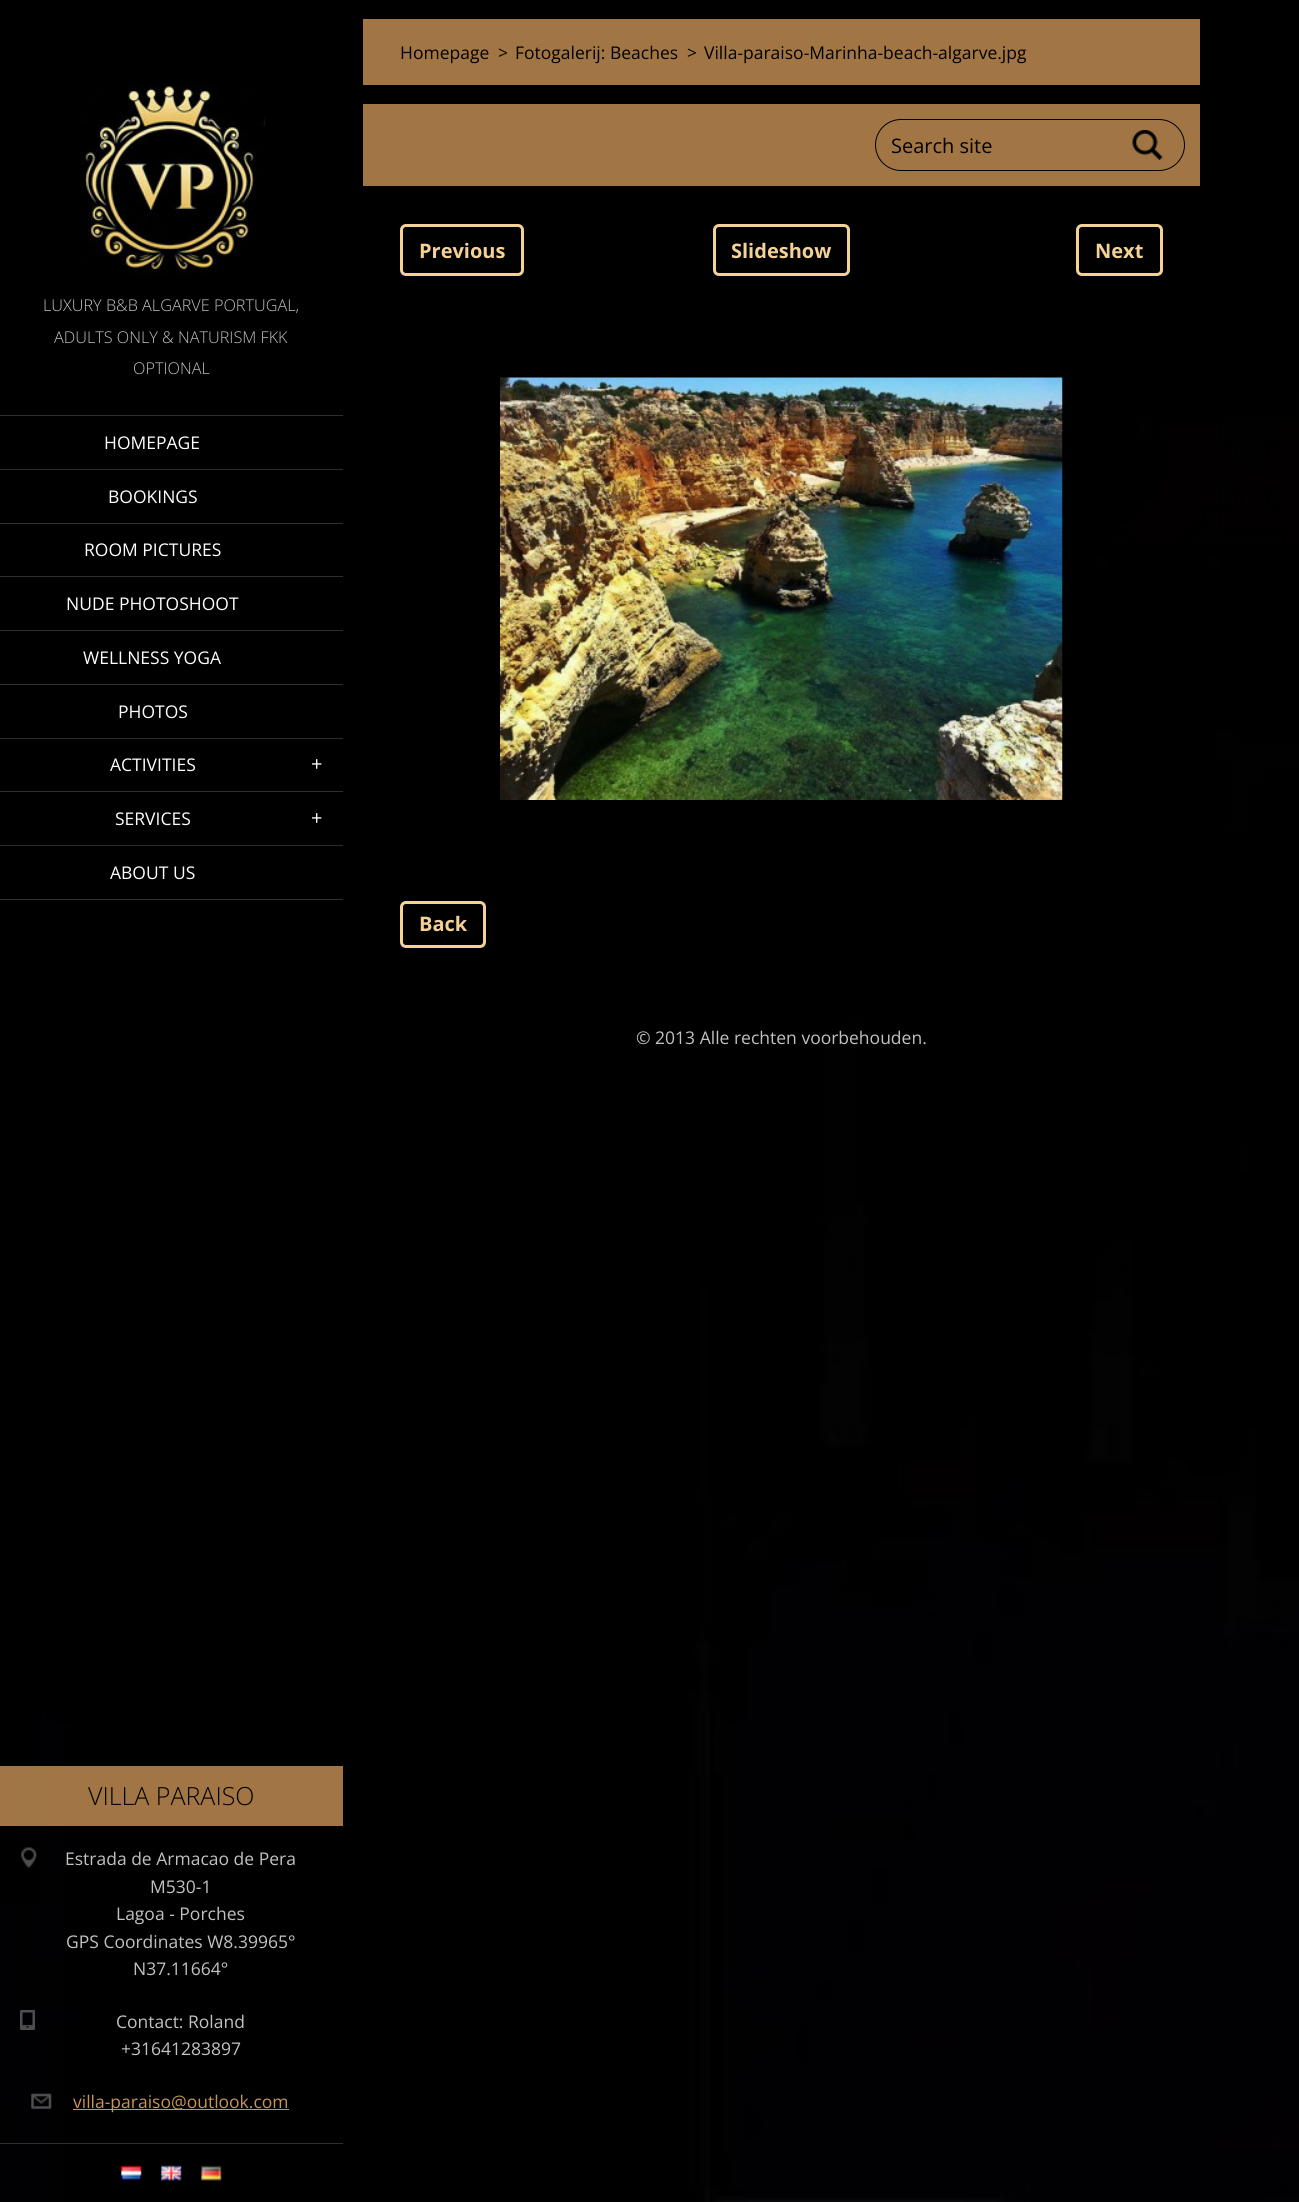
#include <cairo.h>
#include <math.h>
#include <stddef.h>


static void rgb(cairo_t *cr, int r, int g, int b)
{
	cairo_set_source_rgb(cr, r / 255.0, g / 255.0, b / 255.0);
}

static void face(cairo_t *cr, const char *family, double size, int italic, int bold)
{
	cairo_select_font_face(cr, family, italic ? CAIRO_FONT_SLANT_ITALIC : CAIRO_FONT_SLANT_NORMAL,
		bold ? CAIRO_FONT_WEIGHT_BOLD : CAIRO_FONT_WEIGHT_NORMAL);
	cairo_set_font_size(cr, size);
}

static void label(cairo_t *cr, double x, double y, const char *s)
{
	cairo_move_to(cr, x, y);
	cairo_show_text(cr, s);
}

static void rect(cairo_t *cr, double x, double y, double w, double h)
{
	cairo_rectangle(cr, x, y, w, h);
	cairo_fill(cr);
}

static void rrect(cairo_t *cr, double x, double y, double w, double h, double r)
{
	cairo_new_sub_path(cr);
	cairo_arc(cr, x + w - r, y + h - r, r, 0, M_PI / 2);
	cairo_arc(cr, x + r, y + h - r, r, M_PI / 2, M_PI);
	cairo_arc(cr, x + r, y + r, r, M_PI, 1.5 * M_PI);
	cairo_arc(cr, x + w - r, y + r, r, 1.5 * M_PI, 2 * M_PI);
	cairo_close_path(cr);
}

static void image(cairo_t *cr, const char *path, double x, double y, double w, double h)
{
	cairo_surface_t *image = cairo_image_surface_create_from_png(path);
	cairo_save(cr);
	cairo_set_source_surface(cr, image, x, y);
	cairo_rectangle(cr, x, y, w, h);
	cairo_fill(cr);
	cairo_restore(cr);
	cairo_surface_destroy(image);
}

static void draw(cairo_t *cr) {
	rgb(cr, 255, 255, 255);
	cairo_paint(cr);
	image(cr, "image0.png", 0, 0, 1299, 2202);
	image(cr, "image1.png", 77, 85, 188, 190);
	face(cr, "Open Sans Light", 16.25, 0, 0);
	rgb(cr, 194, 194, 194);
	label(cr, 43, 311, "LUXURY B&B ALGARVE PORTUGAL,");
	label(cr, 54, 343, "ADULTS ONLY & NATURISM FKK");
	label(cr, 133, 374, "OPTIONAL");
	rgb(cr, 46, 46, 46);
	rect(cr, 0, 415, 343, 1);
	rect(cr, 0, 469, 343, 1);
	face(cr, "Open Sans", 17.5, 0, 0);
	rgb(cr, 255, 255, 255);
	label(cr, 104, 449, "HOMEPAGE");
	rgb(cr, 46, 46, 46);
	rect(cr, 0, 523, 343, 1);
	rgb(cr, 255, 255, 255);
	label(cr, 108, 503, "BOOKINGS");
	rgb(cr, 46, 46, 46);
	rect(cr, 0, 576, 343, 1);
	rgb(cr, 255, 255, 255);
	label(cr, 84, 556, "ROOM PICTURES");
	rgb(cr, 46, 46, 46);
	rect(cr, 0, 630, 343, 1);
	rgb(cr, 255, 255, 255);
	label(cr, 66, 610, "NUDE PHOTOSHOOT");
	rgb(cr, 46, 46, 46);
	rect(cr, 0, 684, 343, 1);
	rgb(cr, 255, 255, 255);
	label(cr, 83, 664, "WELLNESS YOGA");
	rgb(cr, 46, 46, 46);
	rect(cr, 0, 738, 343, 1);
	rgb(cr, 255, 255, 255);
	label(cr, 118, 718, "PHOTOS");
	rgb(cr, 46, 46, 46);
	rect(cr, 0, 791, 343, 1);
	rgb(cr, 255, 255, 255);
	label(cr, 110, 771, "ACTIVITIES");
	face(cr, "Open Sans", 20, 0, 0);
	label(cr, 311, 771, "+");
	rgb(cr, 46, 46, 46);
	rect(cr, 0, 845, 343, 1);
	face(cr, "Open Sans", 17.5, 0, 0);
	rgb(cr, 255, 255, 255);
	label(cr, 115, 825, "SERVICES");
	face(cr, "Open Sans", 20, 0, 0);
	label(cr, 311, 825, "+");
	rgb(cr, 46, 46, 46);
	rect(cr, 0, 899, 343, 1);
	face(cr, "Open Sans", 17.5, 0, 0);
	rgb(cr, 255, 255, 255);
	label(cr, 110, 879, "ABOUT US");
	cairo_set_source_rgba(cr, 0.788, 0.58, 0.333, 0.8);
	rect(cr, 0, 1766, 343, 60);
	face(cr, "Open Sans Light", 25, 0, 0);
	rgb(cr, 0, 0, 0);
	label(cr, 88, 1805, "VILLA PARAISO");
	cairo_set_source_rgba(cr, 0, 0, 0, 0.8);
	rect(cr, 0, 1838, 40, 64);
	image(cr, "image2.png", 21, 1847, 16, 21);
	face(cr, "Open Sans", 17.5, 0, 0);
	rgb(cr, 194, 194, 194);
	label(cr, 65, 1865, "Estrada de Armacao de Pera");
	label(cr, 150, 1893, "M530-1");
	label(cr, 116, 1920, "Lagoa - Porches");
	label(cr, 66, 1948, "GPS Coordinates W8.39965°");
	label(cr, 133, 1975, "N37.11664°");
	image(cr, "image3.png", 20, 2010, 15, 20);
	label(cr, 116, 2028, "Contact: Roland");
	label(cr, 121, 2055, "+31641283897");
	image(cr, "image4.png", 31, 2093, 21, 16);
	rgb(cr, 201, 148, 85);
	rect(cr, 73, 2109, 216, 1);
	label(cr, 73, 2108, "villa-paraiso@outlook.com");
	rgb(cr, 46, 46, 46);
	rect(cr, 0, 2143, 343, 1);
	image(cr, "image5.png", 121, 2165, 21, 16);
	image(cr, "image6.png", 161, 2165, 21, 16);
	image(cr, "image7.png", 201, 2165, 21, 16);
	rgb(cr, 161, 118, 68);
	rect(cr, 363, 19, 837, 66);
	rgb(cr, 0, 0, 0);
	label(cr, 400, 59, "Homepage");
	label(cr, 498, 59, ">");
	label(cr, 515, 59, "Fotogalerij: Beaches");
	label(cr, 687, 59, ">");
	label(cr, 704, 59, "Villa-paraiso-Marinha-beach-algarve.jpg");
	rgb(cr, 161, 118, 68);
	rect(cr, 363, 104, 837, 82);
	rrect(cr, 875.5, 119.5, 309, 51, 25.5);
	rgb(cr, 0, 0, 0);
	cairo_set_line_width(cr, 1);
	cairo_stroke(cr);
	face(cr, "Open Sans", 20, 0, 0);
	label(cr, 891, 153, "Search site");
	image(cr, "image8.png", 1132, 130, 31, 30);
	rrect(cr, 401.5, 225.5, 121, 49, 4.5);
	rgb(cr, 244, 210, 150);
	cairo_set_line_width(cr, 3);
	cairo_stroke(cr);
	face(cr, "Open Sans", 20, 0, 1);
	label(cr, 419, 258, "Previous");
	rrect(cr, 714.5, 225.5, 134, 49, 4.5);
	cairo_stroke(cr);
	label(cr, 731, 258, "Slideshow");
	rrect(cr, 1077.5, 225.5, 84, 49, 4.5);
	cairo_stroke(cr);
	label(cr, 1095, 258, "Next");
	image(cr, "image9.png", 500, 377, 563, 423);
	rrect(cr, 401.5, 902.5, 83, 44, 4.5);
	cairo_stroke(cr);
	label(cr, 419, 931, "Back");
	face(cr, "Open Sans", 17.5, 0, 0);
	rgb(cr, 194, 194, 194);
	label(cr, 636, 1044, "© 2013 Alle rechten voorbehouden.");
}

int main(void) {
	cairo_surface_t *surface = cairo_image_surface_create(CAIRO_FORMAT_RGB24, 1299, 2202);
	cairo_t *cr = cairo_create(surface);
	cairo_font_options_t *options = cairo_font_options_create();
	cairo_font_options_set_hint_metrics(options, CAIRO_HINT_METRICS_OFF);
	cairo_font_options_set_hint_style(options, CAIRO_HINT_STYLE_NONE);
	cairo_set_font_options(cr, options);
	cairo_set_miter_limit(cr, 4);
	draw(cr);
	cairo_surface_write_to_png(surface, "render.png");
	cairo_font_options_destroy(options);
	cairo_destroy(cr);
	cairo_surface_destroy(surface);
	return 0;
}
